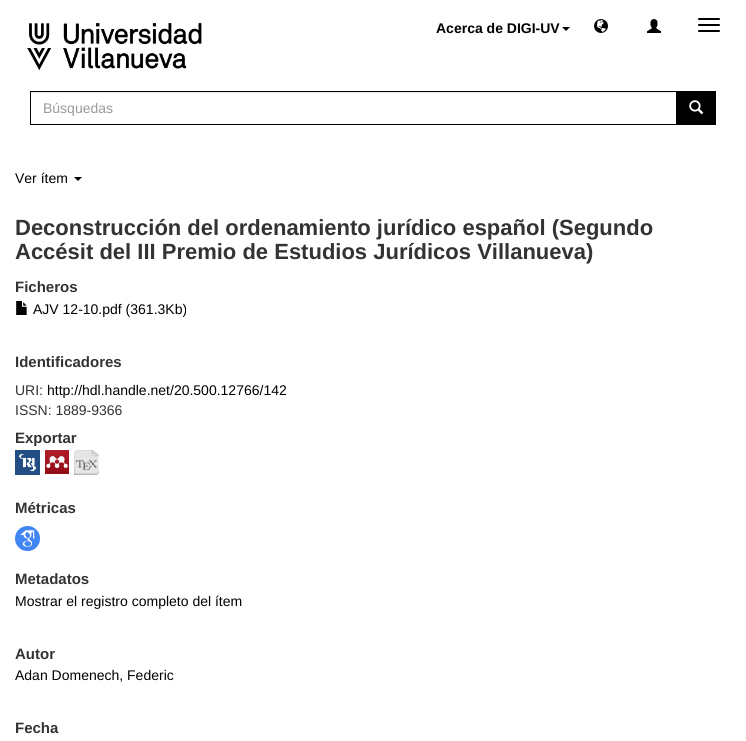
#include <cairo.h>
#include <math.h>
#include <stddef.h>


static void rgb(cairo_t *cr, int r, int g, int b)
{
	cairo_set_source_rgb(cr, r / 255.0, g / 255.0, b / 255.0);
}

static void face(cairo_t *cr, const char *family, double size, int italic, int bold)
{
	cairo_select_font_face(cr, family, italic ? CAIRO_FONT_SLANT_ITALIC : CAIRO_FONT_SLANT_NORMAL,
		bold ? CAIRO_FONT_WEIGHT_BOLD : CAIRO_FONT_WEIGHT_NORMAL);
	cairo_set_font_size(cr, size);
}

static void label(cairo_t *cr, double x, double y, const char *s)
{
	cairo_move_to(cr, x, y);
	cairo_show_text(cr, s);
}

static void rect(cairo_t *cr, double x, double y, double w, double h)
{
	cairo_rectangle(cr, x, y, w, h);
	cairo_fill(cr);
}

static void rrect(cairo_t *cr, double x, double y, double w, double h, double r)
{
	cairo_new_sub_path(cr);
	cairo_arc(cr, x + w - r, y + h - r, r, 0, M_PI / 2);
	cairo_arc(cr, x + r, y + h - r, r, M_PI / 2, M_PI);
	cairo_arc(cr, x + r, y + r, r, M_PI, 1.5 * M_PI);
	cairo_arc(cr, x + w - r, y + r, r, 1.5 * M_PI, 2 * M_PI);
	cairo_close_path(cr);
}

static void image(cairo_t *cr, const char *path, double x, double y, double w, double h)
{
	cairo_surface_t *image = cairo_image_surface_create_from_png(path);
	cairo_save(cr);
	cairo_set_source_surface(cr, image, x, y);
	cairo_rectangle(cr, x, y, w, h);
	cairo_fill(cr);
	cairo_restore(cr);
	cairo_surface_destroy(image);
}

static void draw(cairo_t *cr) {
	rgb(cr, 255, 255, 255);
	cairo_paint(cr);
	image(cr, "image0.png", 27, 23, 175, 48);
	face(cr, "Liberation Sans", 14, 0, 1);
	rgb(cr, 0, 0, 0);
	label(cr, 436, 33, "Acerca de DIGI-UV");
	cairo_new_path(cr);
	cairo_move_to(cr, 562, 27);
	cairo_line_to(cr, 570, 27);
	cairo_line_to(cr, 566, 31);
	cairo_close_path(cr);
	cairo_fill(cr);
	image(cr, "image1.png", 594, 19, 14, 14);
	image(cr, "image2.png", 647, 19, 14, 14);
	rrect(cr, 698, 18, 22, 2, 1);
	cairo_fill(cr);
	rrect(cr, 698, 24, 22, 2, 1);
	cairo_fill(cr);
	rrect(cr, 698, 30, 22, 2, 1);
	cairo_fill(cr);
	rgb(cr, 236, 236, 236);
	rect(cr, 31, 92, 645, 1);
	cairo_rectangle(cr, 30.5, 91.5, 646, 33);
	rgb(cr, 0, 0, 0);
	cairo_set_line_width(cr, 1);
	cairo_stroke(cr);
	face(cr, "Liberation Sans", 14, 0, 0);
	rgb(cr, 153, 153, 153);
	label(cr, 43, 113, "Búsquedas");
	rgb(cr, 0, 0, 0);
	rect(cr, 677, 91, 39, 34);
	image(cr, "image3.png", 689, 100, 15, 15);
	label(cr, 15, 183, "Ver ítem");
	cairo_new_path(cr);
	cairo_move_to(cr, 74, 177);
	cairo_line_to(cr, 82, 177);
	cairo_line_to(cr, 78, 181);
	cairo_close_path(cr);
	cairo_fill(cr);
	face(cr, "Liberation Sans", 22, 0, 1);
	rgb(cr, 51, 51, 51);
	label(cr, 15, 235, "Deconstrucción del ordenamiento jurídico español (Segundo");
	label(cr, 15, 259, "Accésit del III Premio de Estudios Jurídicos Villanueva)");
	face(cr, "Liberation Sans", 15, 0, 1);
	label(cr, 15, 292, "Ficheros");
	image(cr, "image4.png", 16, 301, 11, 14);
	face(cr, "Liberation Sans", 14, 0, 0);
	rgb(cr, 0, 0, 0);
	label(cr, 33, 314, "AJV 12-10.pdf (361.3Kb)");
	face(cr, "Liberation Sans", 15, 0, 1);
	rgb(cr, 51, 51, 51);
	label(cr, 15, 367, "Identificadores");
	face(cr, "Liberation Sans", 14, 0, 0);
	label(cr, 15, 395, "URI:");
	rgb(cr, 0, 0, 0);
	label(cr, 47, 395, "http://hdl.handle.net/20.500.12766/142");
	rgb(cr, 51, 51, 51);
	label(cr, 15, 415, "ISSN: 1889-9366");
	face(cr, "Liberation Sans", 15, 0, 1);
	label(cr, 15, 443, "Exportar");
	image(cr, "image5.png", 15, 450, 25, 25);
	image(cr, "image6.png", 45, 450, 24, 24);
	image(cr, "image7.png", 74, 450, 25, 25);
	label(cr, 15, 513, "Métricas");
	image(cr, "image8.png", 15, 526, 25, 25);
	label(cr, 15, 584, "Metadatos");
	face(cr, "Liberation Sans", 14, 0, 0);
	rgb(cr, 0, 0, 0);
	label(cr, 15, 606, "Mostrar el registro completo del ítem");
	face(cr, "Liberation Sans", 15, 0, 1);
	rgb(cr, 51, 51, 51);
	label(cr, 15, 659, "Autor");
	face(cr, "Liberation Sans", 14, 0, 0);
	rgb(cr, 0, 0, 0);
	label(cr, 15, 680, "Adan Domenech, Federic");
	face(cr, "Liberation Sans", 15, 0, 1);
	rgb(cr, 51, 51, 51);
	label(cr, 15, 733, "Fecha");
}

int main(void) {
	cairo_surface_t *surface = cairo_image_surface_create(CAIRO_FORMAT_RGB24, 746, 741);
	cairo_t *cr = cairo_create(surface);
	cairo_font_options_t *options = cairo_font_options_create();
	cairo_font_options_set_hint_metrics(options, CAIRO_HINT_METRICS_OFF);
	cairo_font_options_set_hint_style(options, CAIRO_HINT_STYLE_NONE);
	cairo_set_font_options(cr, options);
	cairo_set_miter_limit(cr, 4);
	draw(cr);
	cairo_surface_write_to_png(surface, "render.png");
	cairo_font_options_destroy(options);
	cairo_destroy(cr);
	cairo_surface_destroy(surface);
	return 0;
}
